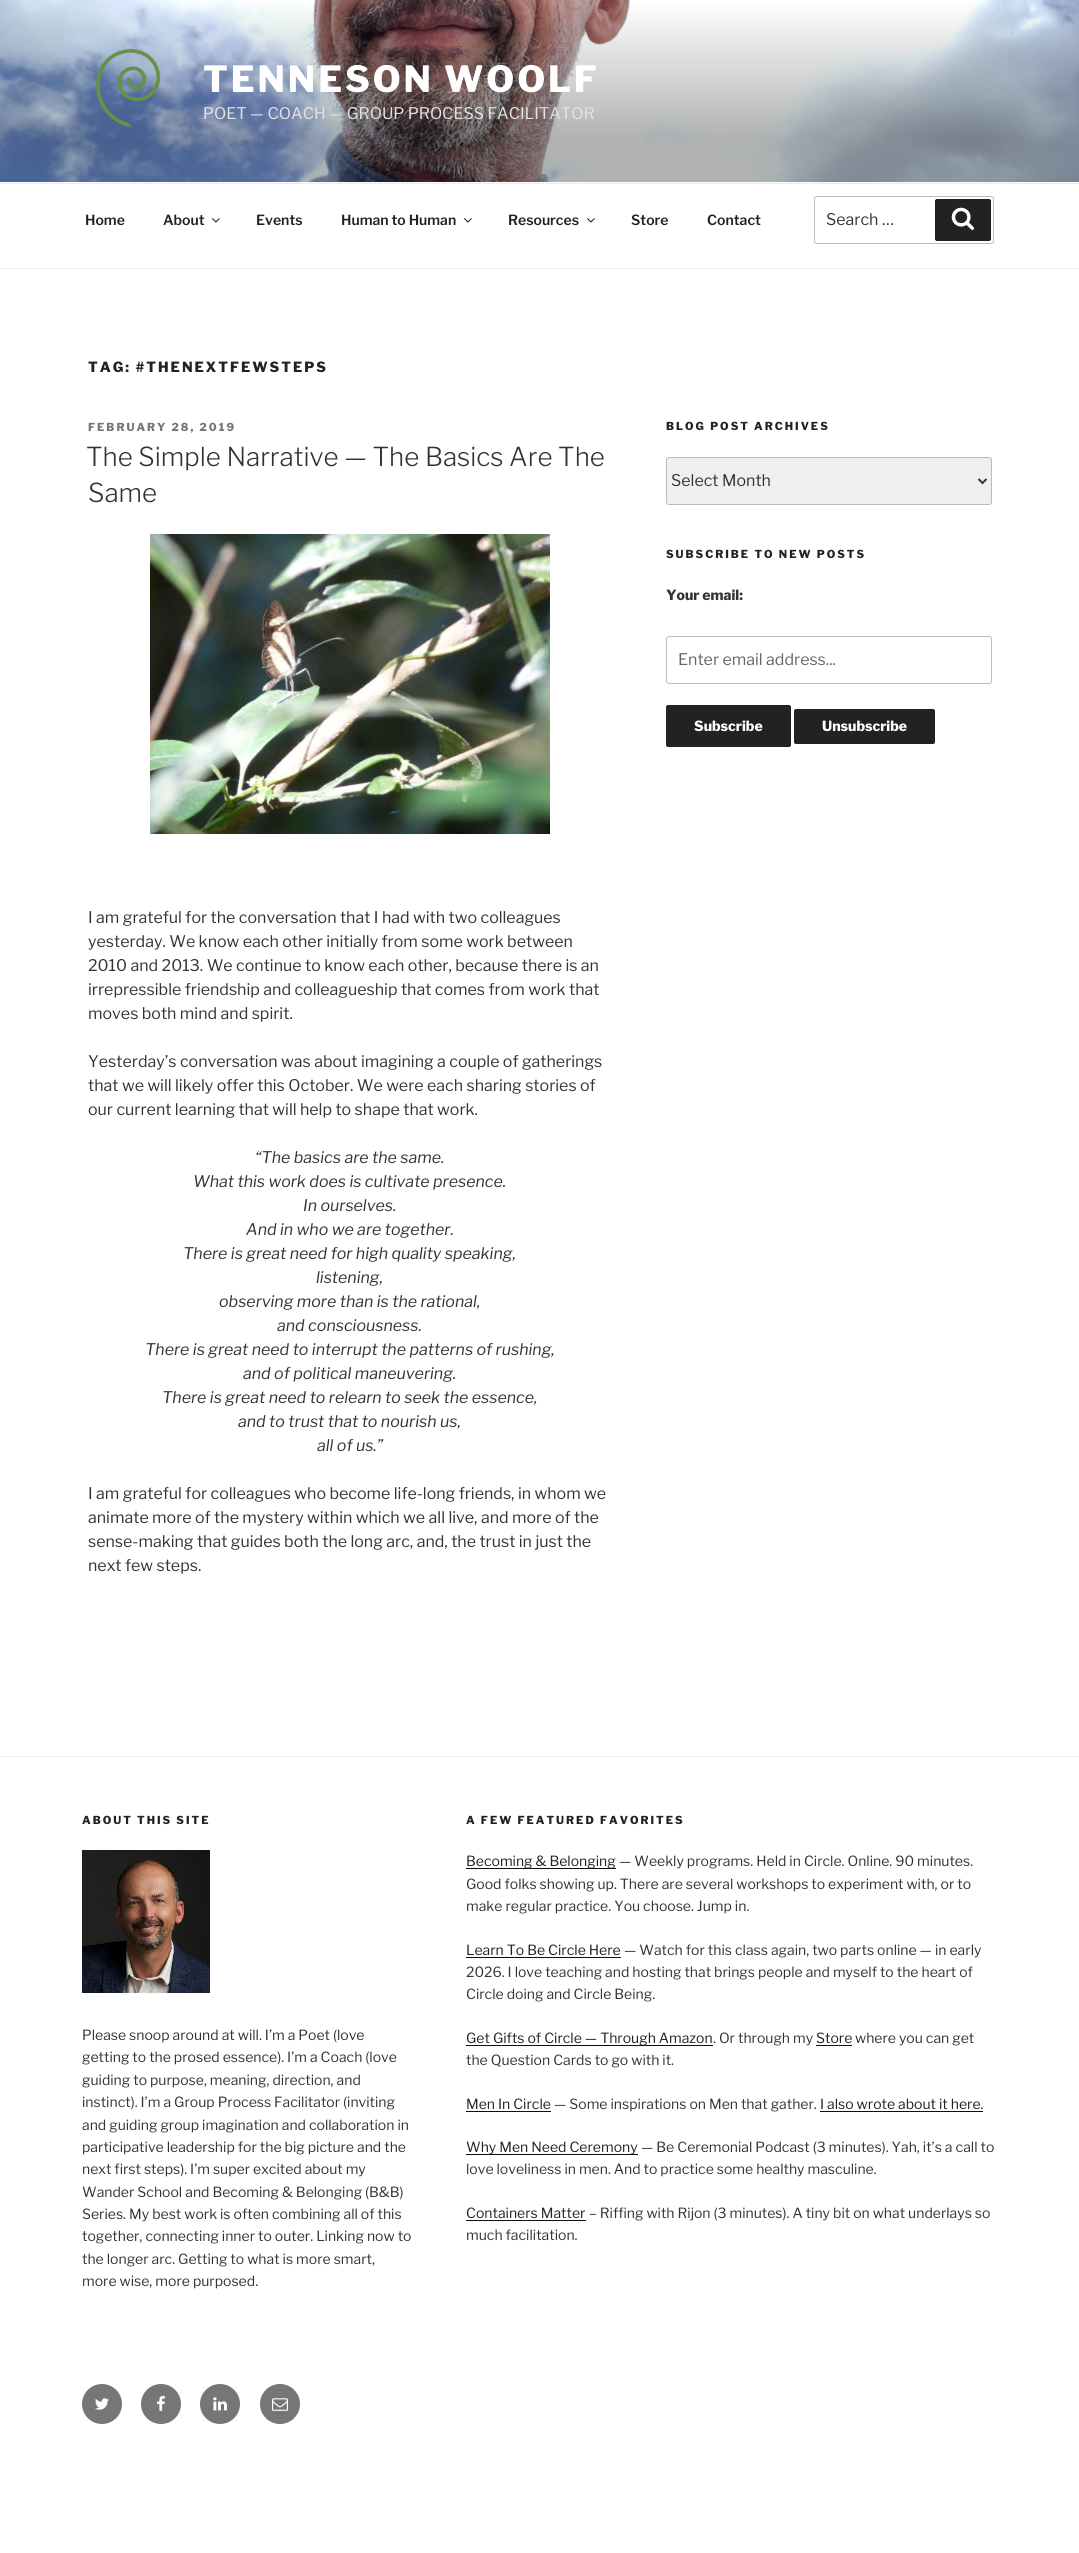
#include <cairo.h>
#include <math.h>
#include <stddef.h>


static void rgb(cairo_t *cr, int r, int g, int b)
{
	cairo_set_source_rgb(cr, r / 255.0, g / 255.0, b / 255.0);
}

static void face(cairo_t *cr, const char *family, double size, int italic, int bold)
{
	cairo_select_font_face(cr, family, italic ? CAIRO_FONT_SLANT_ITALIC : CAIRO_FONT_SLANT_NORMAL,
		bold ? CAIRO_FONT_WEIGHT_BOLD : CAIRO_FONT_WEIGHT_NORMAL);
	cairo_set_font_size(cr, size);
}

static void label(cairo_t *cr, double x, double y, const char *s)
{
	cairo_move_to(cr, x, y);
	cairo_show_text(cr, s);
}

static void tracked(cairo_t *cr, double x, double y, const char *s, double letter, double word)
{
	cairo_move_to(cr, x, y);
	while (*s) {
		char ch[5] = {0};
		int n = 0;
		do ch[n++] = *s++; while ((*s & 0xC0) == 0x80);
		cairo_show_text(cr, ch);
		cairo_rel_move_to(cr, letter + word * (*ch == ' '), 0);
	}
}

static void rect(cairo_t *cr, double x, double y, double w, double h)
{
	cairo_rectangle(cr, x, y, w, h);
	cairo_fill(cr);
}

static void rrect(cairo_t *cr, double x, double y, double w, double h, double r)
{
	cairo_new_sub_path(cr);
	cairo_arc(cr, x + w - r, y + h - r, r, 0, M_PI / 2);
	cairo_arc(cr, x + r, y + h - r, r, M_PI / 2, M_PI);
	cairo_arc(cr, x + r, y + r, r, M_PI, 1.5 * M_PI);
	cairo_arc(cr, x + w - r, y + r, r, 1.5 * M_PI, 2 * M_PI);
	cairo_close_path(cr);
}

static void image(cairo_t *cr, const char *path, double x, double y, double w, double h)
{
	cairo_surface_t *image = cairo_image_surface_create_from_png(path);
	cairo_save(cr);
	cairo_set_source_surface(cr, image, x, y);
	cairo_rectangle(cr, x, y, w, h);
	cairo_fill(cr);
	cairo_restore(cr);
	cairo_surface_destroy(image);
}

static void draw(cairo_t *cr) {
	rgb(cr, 255, 255, 255);
	cairo_paint(cr);
	rgb(cr, 250, 250, 250);
	rect(cr, 0, 182, 1079, 1);
	image(cr, "image0.png", 0, 0, 1079, 182);
	image(cr, "image1.png", 95, 48, 66, 80);
	face(cr, "Libre Franklin Thin", 36, 0, 0);
	rgb(cr, 255, 255, 255);
	tracked(cr, 203, 92, "TENNESON WOOLF", 2.9, 0);
	face(cr, "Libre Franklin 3 Thin", 16, 0, 0);
	rgb(cr, 227, 227, 229);
	label(cr, 203, 119, "POET — COACH — GROUP PROCESS FACILITATOR");
	rgb(cr, 238, 238, 238);
	rect(cr, 0, 183, 1079, 1);
	rect(cr, 0, 268, 1079, 1);
	face(cr, "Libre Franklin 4 Thin", 14, 0, 0);
	rgb(cr, 34, 34, 34);
	label(cr, 85, 225, "Home");
	label(cr, 163, 225, "About");
	image(cr, "image2.png", 212, 218, 8, 5);
	label(cr, 256, 225, "Events");
	label(cr, 341, 225, "Human to Human");
	image(cr, "image2.png", 464, 218, 8, 5);
	label(cr, 508, 225, "Resources");
	image(cr, "image2.png", 587, 218, 8, 5);
	label(cr, 631, 225, "Store");
	label(cr, 707, 225, "Contact");
	rrect(cr, 814.5, 196.5, 179, 47, 2.5);
	rgb(cr, 187, 187, 187);
	cairo_set_line_width(cr, 1);
	cairo_stroke(cr);
	face(cr, "Libre Franklin 3 Thin", 16, 0, 0);
	rgb(cr, 51, 51, 51);
	label(cr, 826, 225, "Search …");
	rgb(cr, 34, 34, 34);
	rrect(cr, 935, 199, 56, 42, 2);
	cairo_fill(cr);
	image(cr, "image3.png", 951, 207, 23, 23);
	face(cr, "Libre Franklin Thin", 14, 0, 0);
	tracked(cr, 88, 372, "TAG: #THENEXTFEWSTEPS", 2, 0);
	face(cr, "Libre Franklin Thin", 11, 0, 0);
	rgb(cr, 118, 118, 118);
	tracked(cr, 88, 431, "FEBRUARY 28, 2019", 2, 0);
	face(cr, "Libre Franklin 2 Thin", 26, 0, 0);
	rgb(cr, 51, 51, 51);
	label(cr, 86, 466, "The Simple Narrative — The Basics Are The");
	label(cr, 88, 502, "Same");
	image(cr, "image4.png", 150, 534, 400, 300);
	face(cr, "Libre Franklin 3 Thin", 16, 0, 0);
	label(cr, 88, 923, "I am grateful for the conversation that I had with two colleagues");
	label(cr, 88, 947, "yesterday. We know each other initially from some work between");
	label(cr, 88, 971, "2010 and 2013. We continue to know each other, because there is an");
	label(cr, 88, 995, "irrepressible friendship and colleagueship that comes from work that");
	label(cr, 88, 1019, "moves both mind and spirit.");
	label(cr, 88, 1067, "Yesterday’s conversation was about imagining a couple of gatherings");
	label(cr, 88, 1091, "that we will likely offer this October. We were each sharing stories of");
	label(cr, 88, 1115, "our current learning that will help to shape that work.");
	face(cr, "Libre Franklin Thin", 16, 1, 0);
	label(cr, 255, 1163, "“The basics are the same.");
	label(cr, 193, 1187, "What this work does is cultivate presence.");
	label(cr, 303, 1211, "In ourselves.");
	label(cr, 246, 1235, "And in who we are together.");
	label(cr, 183, 1259, "There is great need for high quality speaking,");
	label(cr, 316, 1283, "listening,");
	label(cr, 219, 1307, "observing more than is the rational,");
	label(cr, 277, 1331, "and consciousness.");
	label(cr, 145, 1355, "There is great need to interrupt the patterns of rushing,");
	label(cr, 243, 1379, "and of political maneuvering.");
	label(cr, 162, 1403, "There is great need to relearn to seek the essence,");
	label(cr, 238, 1427, "and to trust that to nourish us,");
	label(cr, 317, 1451, "all of us.”");
	face(cr, "Libre Franklin 3 Thin", 16, 0, 0);
	label(cr, 88, 1499, "I am grateful for colleagues who become life-long friends, in whom we");
	label(cr, 88, 1523, "animate more of the mystery within which we all live, and more of the");
	label(cr, 88, 1547, "sense-making that guides both the long arc, and, the trust in just the");
	label(cr, 88, 1571, "next few steps.");
	face(cr, "Libre Franklin Thin", 11, 0, 0);
	rgb(cr, 34, 34, 34);
	tracked(cr, 666, 430, "BLOG POST ARCHIVES", 2, 0);
	rgb(cr, 239, 239, 239);
	rrect(cr, 666.5, 457.5, 325, 47, 2.5);
	cairo_fill_preserve(cr);
	rgb(cr, 187, 187, 187);
	cairo_stroke(cr);
	cairo_new_path(cr);
	cairo_move_to(cr, 978.5, 479);
	cairo_line_to(cr, 982.5, 483);
	cairo_line_to(cr, 986.5, 479);
	rgb(cr, 51, 51, 51);
	cairo_set_line_width(cr, 2);
	cairo_stroke(cr);
	face(cr, "Libre Franklin 3 Thin", 16, 0, 0);
	label(cr, 671, 486, "Select Month");
	face(cr, "Libre Franklin Thin", 11, 0, 0);
	rgb(cr, 34, 34, 34);
	tracked(cr, 666, 558, "SUBSCRIBE TO NEW POSTS", 2, 0);
	face(cr, "Libre Franklin Thin", 14, 0, 0);
	rgb(cr, 51, 51, 51);
	label(cr, 666, 600, "Your email:");
	rrect(cr, 666.5, 636.5, 325, 47, 2.5);
	rgb(cr, 187, 187, 187);
	cairo_set_line_width(cr, 1);
	cairo_stroke(cr);
	face(cr, "Libre Franklin 3 Thin", 16, 0, 0);
	rgb(cr, 102, 102, 102);
	label(cr, 678, 665, "Enter email address...");
	rgb(cr, 34, 34, 34);
	rrect(cr, 666, 705, 125, 42, 2);
	cairo_fill(cr);
	face(cr, "Libre Franklin Thin", 14, 0, 0);
	rgb(cr, 255, 255, 255);
	label(cr, 694, 731, "Subscribe");
	rgb(cr, 34, 34, 34);
	rrect(cr, 794, 709, 141, 35, 2);
	cairo_fill(cr);
	rgb(cr, 255, 255, 255);
	label(cr, 822, 731, "Unsubscribe");
	rgb(cr, 238, 238, 238);
	rect(cr, 0, 1756, 1079, 1);
	face(cr, "Libre Franklin Thin", 11, 0, 0);
	rgb(cr, 34, 34, 34);
	tracked(cr, 82, 1824, "ABOUT THIS SITE", 2, 0);
	image(cr, "image5.png", 82, 1850, 128, 143);
	face(cr, "Libre Franklin 3 Thin", 14, 0, 0);
	rgb(cr, 51, 51, 51);
	label(cr, 82, 2040, "Please snoop around at will. I’m a Poet (love");
	label(cr, 82, 2062, "getting to the prosed essence). I’m a Coach (love");
	label(cr, 82, 2085, "guiding to purpose, meaning, direction, and");
	label(cr, 82, 2107, "instinct). I’m a Group Process Facilitator (inviting");
	label(cr, 82, 2130, "and guiding group imagination and collaboration in");
	label(cr, 82, 2152, "participative leadership for the big picture and the");
	label(cr, 82, 2174, "next first steps). I’m super excited about my");
	label(cr, 82, 2197, "Wander School and Becoming & Belonging (B&B)");
	label(cr, 82, 2219, "Series. My best work is often combining all of this");
	label(cr, 82, 2241, "together, connecting inner to outer. Linking now to");
	label(cr, 82, 2264, "the longer arc. Getting to what is more smart,");
	label(cr, 82, 2286, "more wise, more purposed.");
	face(cr, "Libre Franklin Thin", 11, 0, 0);
	rgb(cr, 34, 34, 34);
	tracked(cr, 466, 1824, "A FEW FEATURED FAVORITES", 2, 0);
	rgb(cr, 15, 15, 15);
	rect(cr, 466, 1868, 150, 1);
	face(cr, "Libre Franklin 3 Thin", 14, 0, 0);
	rgb(cr, 34, 34, 34);
	label(cr, 466, 1866, "Becoming & Belonging");
	rgb(cr, 51, 51, 51);
	label(cr, 619, 1866, "— Weekly programs. Held in Circle. Online. 90 minutes.");
	label(cr, 466, 1889, "Good folks showing up. There are several workshops to experiment with, or to");
	label(cr, 466, 1911, "make regular practice. You choose. Jump in.");
	rgb(cr, 34, 34, 34);
	label(cr, 466, 1955, "Learn To Be Circle Here");
	rgb(cr, 15, 15, 15);
	rect(cr, 466, 1957, 155, 1);
	rgb(cr, 51, 51, 51);
	label(cr, 624, 1955, "— Watch for this class again, two parts online — in early");
	label(cr, 466, 1977, "2026. I love teaching and hosting that brings people and myself to the heart of");
	label(cr, 466, 1999, "Circle doing and Circle Being.");
	rgb(cr, 15, 15, 15);
	rect(cr, 466, 2045, 247, 1);
	rgb(cr, 34, 34, 34);
	label(cr, 466, 2043, "Get Gifts of Circle — Through Amazon");
	rgb(cr, 51, 51, 51);
	label(cr, 713, 2043, ". Or through my");
	rgb(cr, 34, 34, 34);
	label(cr, 816, 2043, "Store");
	rgb(cr, 15, 15, 15);
	rect(cr, 816, 2045, 36, 1);
	rgb(cr, 51, 51, 51);
	label(cr, 855, 2043, "where you can get");
	label(cr, 466, 2065, "the Question Cards to go with it.");
	rgb(cr, 34, 34, 34);
	label(cr, 466, 2109, "Men In Circle");
	rgb(cr, 15, 15, 15);
	rect(cr, 466, 2111, 85, 1);
	rgb(cr, 51, 51, 51);
	label(cr, 554, 2109, "— Some inspirations on Men that gather.");
	rgb(cr, 34, 34, 34);
	label(cr, 820, 2109, "I also wrote about it here.");
	rgb(cr, 15, 15, 15);
	rect(cr, 820, 2111, 163, 1);
	rect(cr, 466, 2154, 172, 1);
	rgb(cr, 34, 34, 34);
	label(cr, 466, 2152, "Why Men Need Ceremony");
	rgb(cr, 51, 51, 51);
	label(cr, 641, 2152, "— Be Ceremonial Podcast (3 minutes). Yah, it’s a call to");
	label(cr, 466, 2174, "love loveliness in men. And to practice some healthy masculine.");
	rgb(cr, 34, 34, 34);
	label(cr, 466, 2218, "Containers Matter");
	rgb(cr, 15, 15, 15);
	rect(cr, 466, 2220, 120, 1);
	rgb(cr, 51, 51, 51);
	label(cr, 589, 2218, "– Riffing with Rijon (3 minutes). A tiny bit on what underlays so");
	label(cr, 466, 2240, "much facilitation.");
	rgb(cr, 118, 118, 118);
	cairo_new_path(cr);
	cairo_arc(cr, 102, 2404, 20, 0, 2 * M_PI);
	cairo_fill(cr);
	image(cr, "image6.png", 95, 2398, 14, 12);
	cairo_arc(cr, 161, 2404, 20, 0, 2 * M_PI);
	cairo_fill(cr);
	image(cr, "image7.png", 157, 2396, 8, 15);
	cairo_arc(cr, 220, 2404, 20, 0, 2 * M_PI);
	cairo_fill(cr);
	image(cr, "image8.png", 213, 2397, 14, 14);
	cairo_arc(cr, 280, 2404, 20, 0, 2 * M_PI);
	cairo_fill(cr);
	image(cr, "image9.png", 272, 2398, 16, 13);
}

int main(void) {
	cairo_surface_t *surface = cairo_image_surface_create(CAIRO_FORMAT_RGB24, 1079, 2553);
	cairo_t *cr = cairo_create(surface);
	cairo_font_options_t *options = cairo_font_options_create();
	cairo_font_options_set_hint_metrics(options, CAIRO_HINT_METRICS_OFF);
	cairo_font_options_set_hint_style(options, CAIRO_HINT_STYLE_NONE);
	cairo_set_font_options(cr, options);
	cairo_set_miter_limit(cr, 4);
	draw(cr);
	cairo_surface_write_to_png(surface, "render.png");
	cairo_font_options_destroy(options);
	cairo_destroy(cr);
	cairo_surface_destroy(surface);
	return 0;
}
